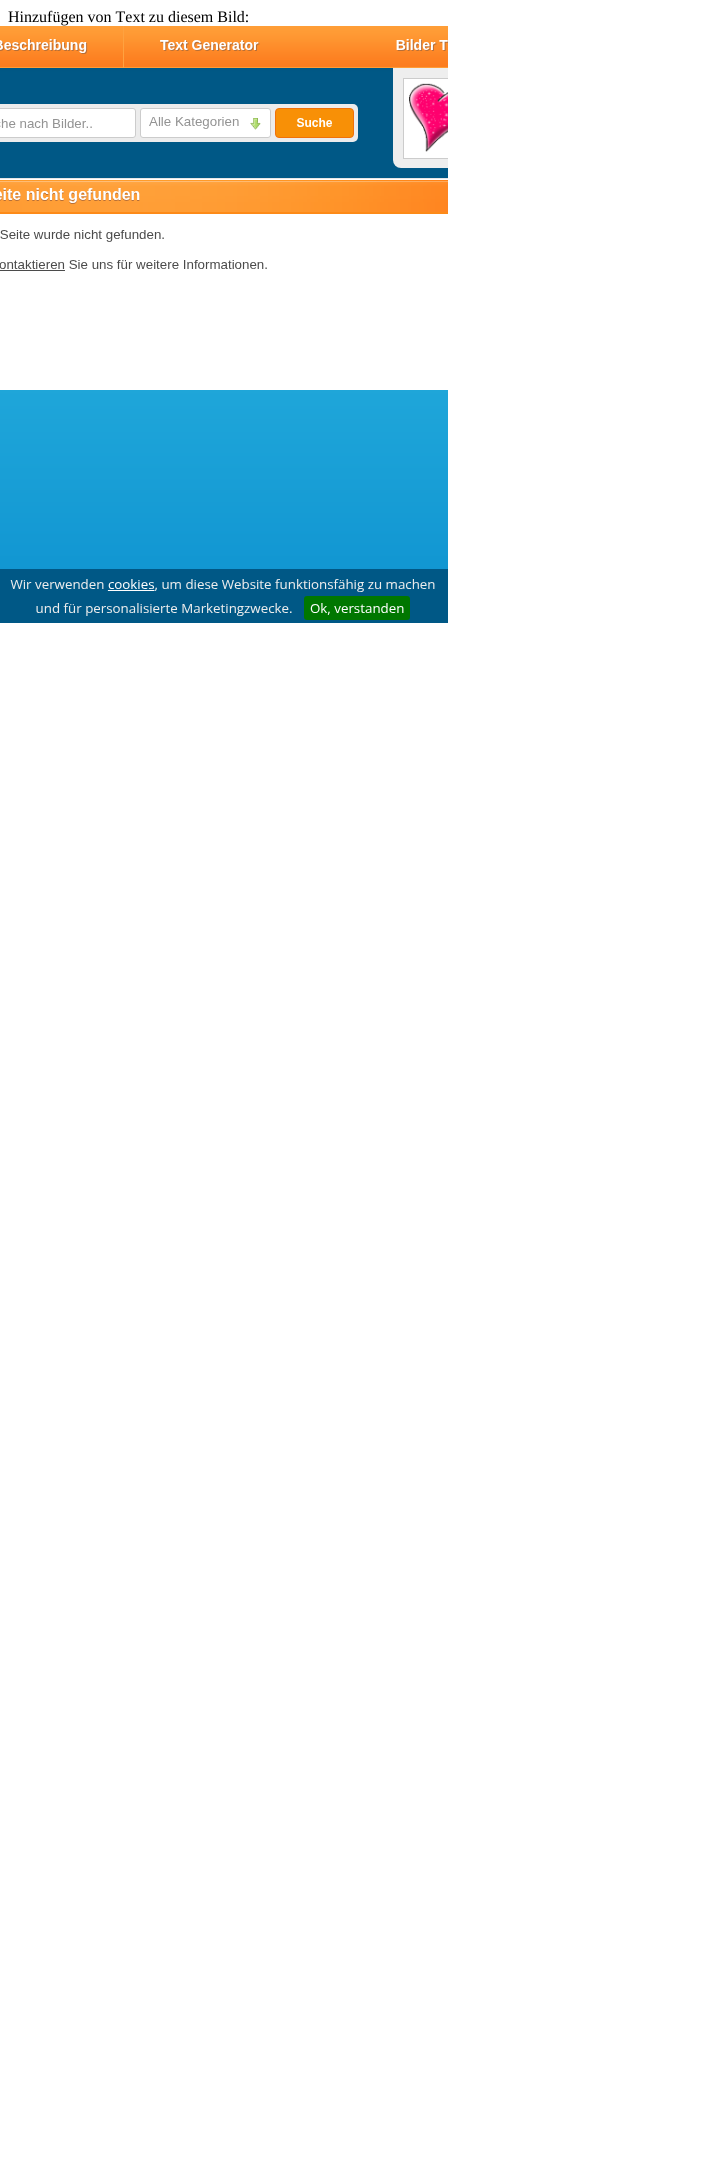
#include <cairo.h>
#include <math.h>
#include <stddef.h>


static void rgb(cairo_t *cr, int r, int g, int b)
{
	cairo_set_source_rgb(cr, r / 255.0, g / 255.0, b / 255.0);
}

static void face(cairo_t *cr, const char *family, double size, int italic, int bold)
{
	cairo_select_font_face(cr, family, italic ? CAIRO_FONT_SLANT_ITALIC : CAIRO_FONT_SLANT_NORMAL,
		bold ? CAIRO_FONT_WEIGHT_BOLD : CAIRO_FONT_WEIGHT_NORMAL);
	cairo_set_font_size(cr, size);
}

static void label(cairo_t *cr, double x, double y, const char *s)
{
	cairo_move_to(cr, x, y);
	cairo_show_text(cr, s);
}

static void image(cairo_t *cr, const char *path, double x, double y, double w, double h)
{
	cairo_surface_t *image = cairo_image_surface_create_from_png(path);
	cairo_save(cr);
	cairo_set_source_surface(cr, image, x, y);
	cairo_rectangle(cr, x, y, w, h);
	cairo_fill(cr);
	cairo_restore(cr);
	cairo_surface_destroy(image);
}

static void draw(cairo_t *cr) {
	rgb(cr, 255, 255, 255);
	cairo_paint(cr);
	face(cr, "Liberation Serif", 16, 0, 0);
	rgb(cr, 0, 0, 0);
	label(cr, 8, 22, "Hinzufügen von Text zu diesem Bild:");
	image(cr, "image0.png", 0, 26, 448, 597);
}

int main(void) {
	cairo_surface_t *surface = cairo_image_surface_create(CAIRO_FORMAT_RGB24, 724, 2162);
	cairo_t *cr = cairo_create(surface);
	cairo_font_options_t *options = cairo_font_options_create();
	cairo_font_options_set_hint_metrics(options, CAIRO_HINT_METRICS_OFF);
	cairo_font_options_set_hint_style(options, CAIRO_HINT_STYLE_NONE);
	cairo_set_font_options(cr, options);
	cairo_set_miter_limit(cr, 4);
	draw(cr);
	cairo_surface_write_to_png(surface, "render.png");
	cairo_font_options_destroy(options);
	cairo_destroy(cr);
	cairo_surface_destroy(surface);
	return 0;
}
